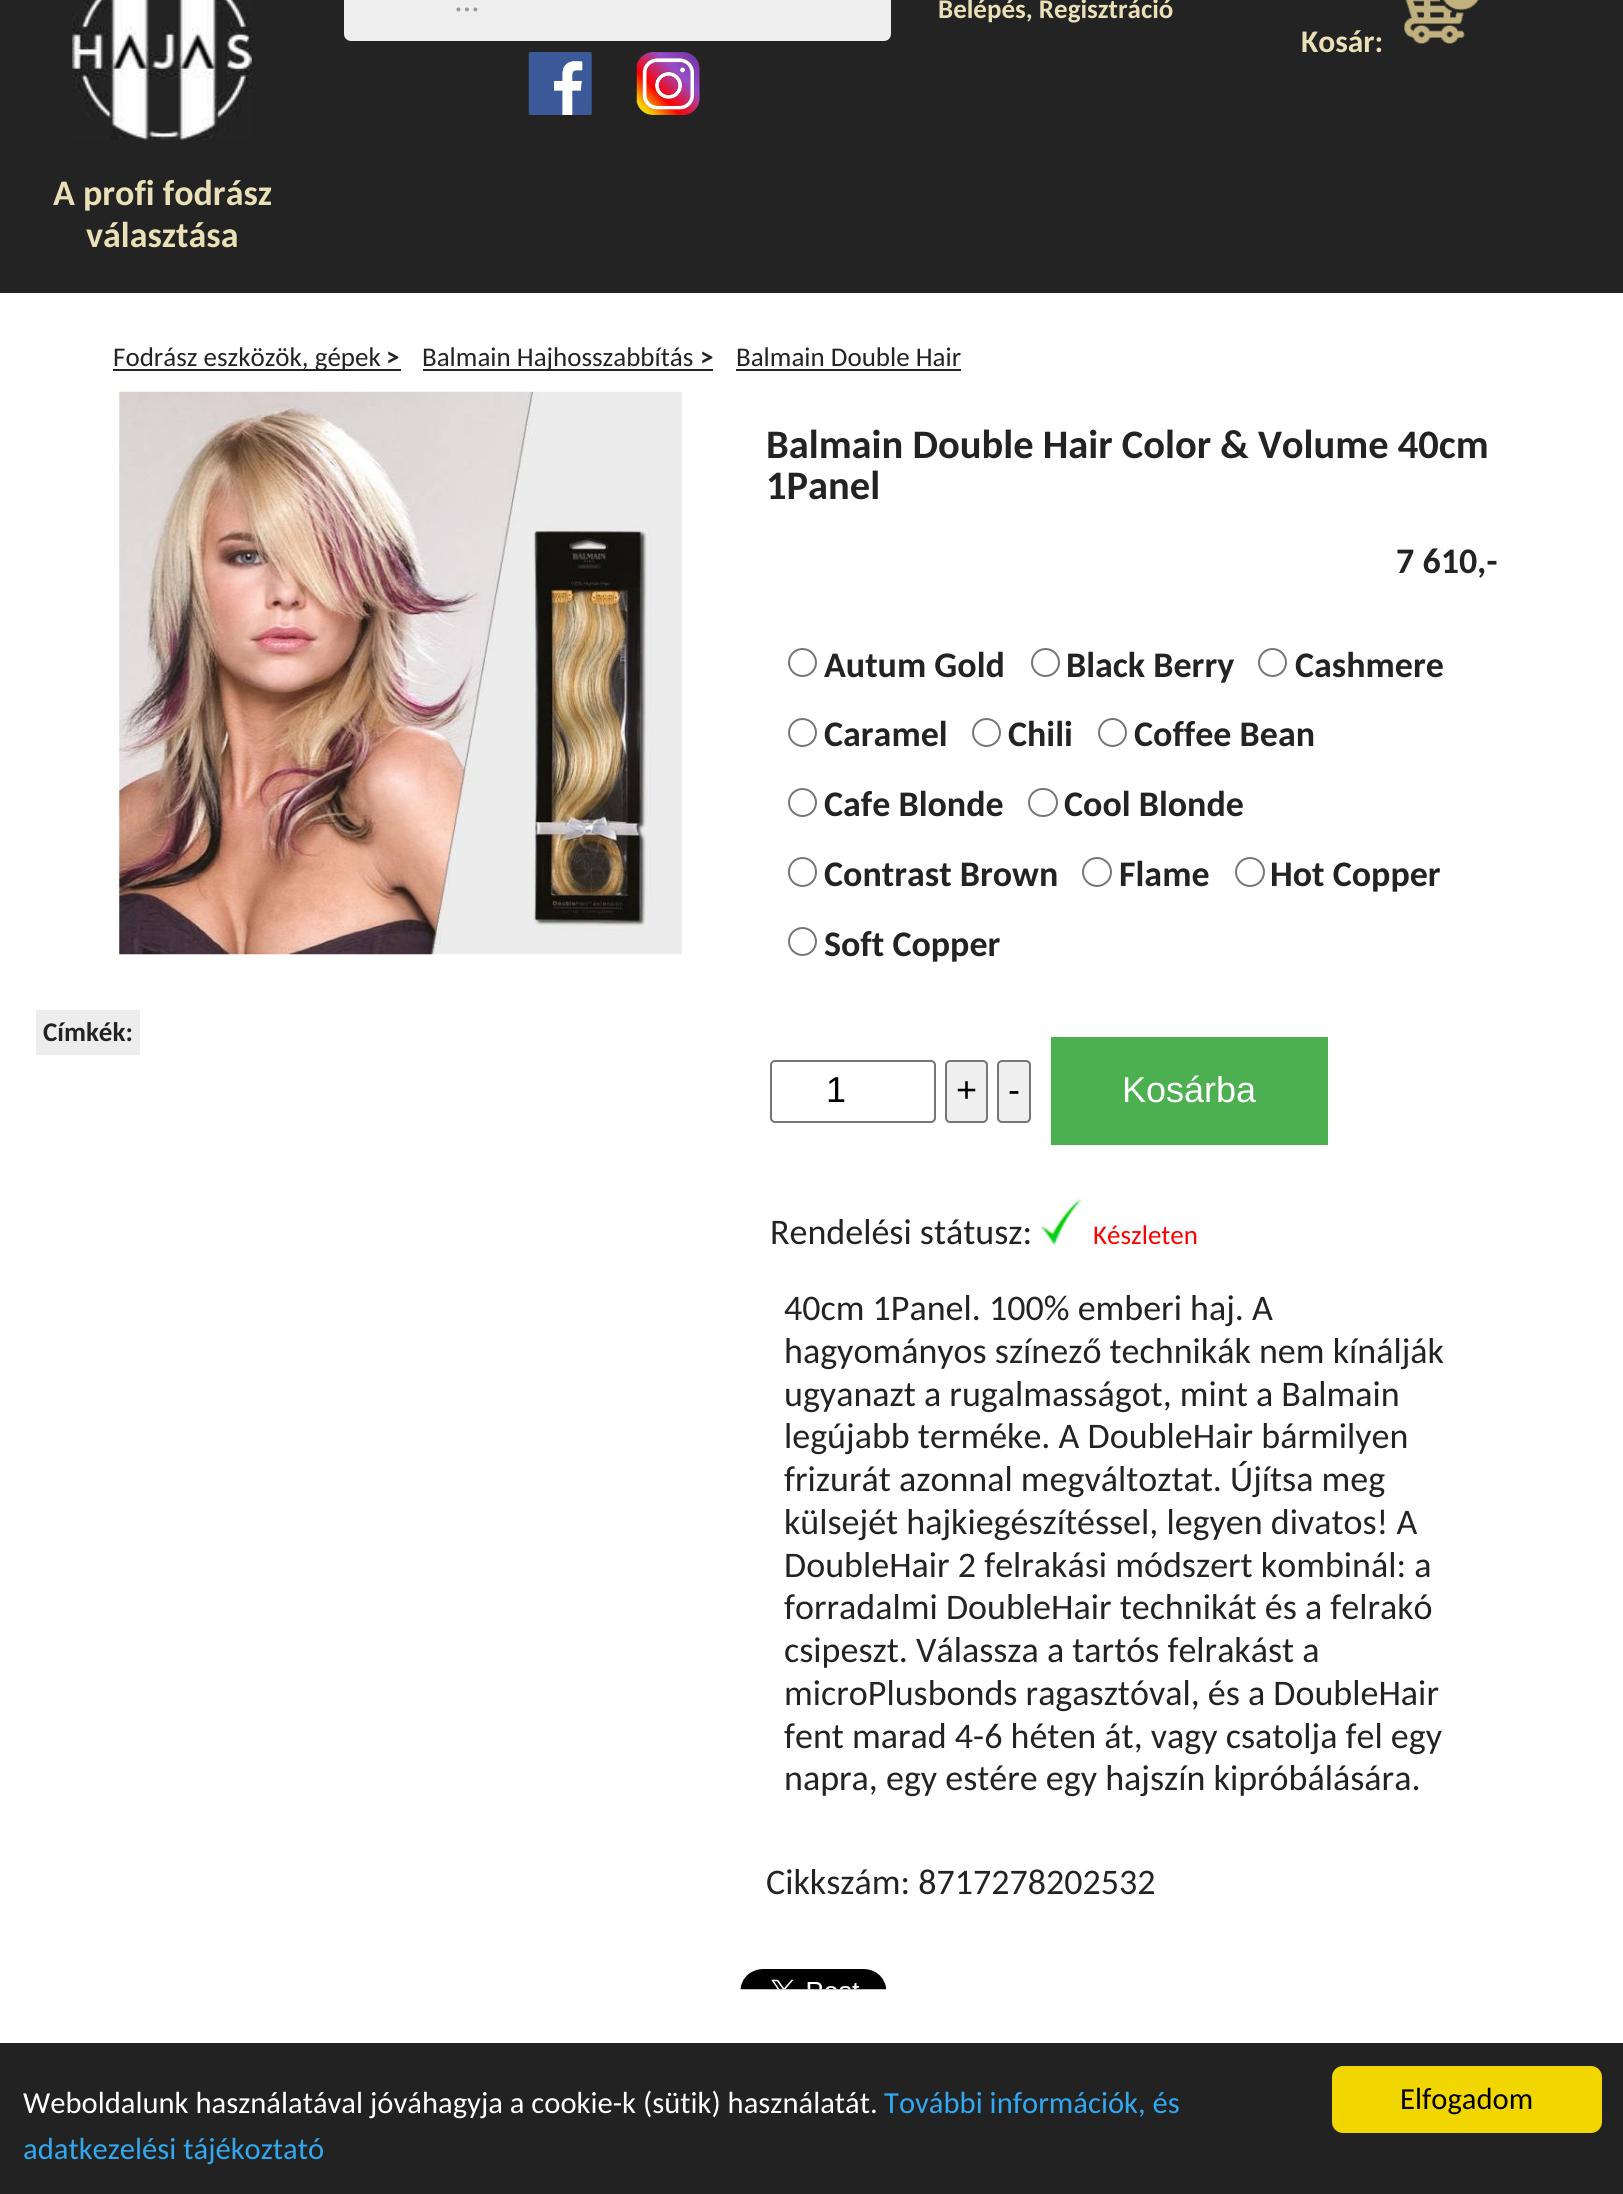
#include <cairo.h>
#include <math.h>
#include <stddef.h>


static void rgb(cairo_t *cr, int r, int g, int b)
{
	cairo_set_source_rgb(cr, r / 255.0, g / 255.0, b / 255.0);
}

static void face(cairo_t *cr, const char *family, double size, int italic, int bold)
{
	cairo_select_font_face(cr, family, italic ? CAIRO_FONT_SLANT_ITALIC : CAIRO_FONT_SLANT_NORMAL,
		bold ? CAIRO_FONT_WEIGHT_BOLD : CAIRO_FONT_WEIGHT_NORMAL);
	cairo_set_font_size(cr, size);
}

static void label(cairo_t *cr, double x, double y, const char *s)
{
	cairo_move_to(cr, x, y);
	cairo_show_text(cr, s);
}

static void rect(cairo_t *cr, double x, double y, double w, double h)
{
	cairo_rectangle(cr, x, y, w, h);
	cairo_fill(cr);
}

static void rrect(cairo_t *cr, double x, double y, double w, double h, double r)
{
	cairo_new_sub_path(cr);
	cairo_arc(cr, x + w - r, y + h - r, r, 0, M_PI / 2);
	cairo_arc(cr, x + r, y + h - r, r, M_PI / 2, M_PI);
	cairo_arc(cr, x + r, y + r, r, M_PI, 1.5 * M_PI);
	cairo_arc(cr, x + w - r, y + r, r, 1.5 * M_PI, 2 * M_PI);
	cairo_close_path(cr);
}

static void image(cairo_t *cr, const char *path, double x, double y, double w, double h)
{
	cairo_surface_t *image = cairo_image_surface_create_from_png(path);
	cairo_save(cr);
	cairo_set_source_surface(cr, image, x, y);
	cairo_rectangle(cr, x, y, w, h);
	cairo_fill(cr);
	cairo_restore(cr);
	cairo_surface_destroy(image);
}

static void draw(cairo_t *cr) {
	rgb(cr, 255, 255, 255);
	cairo_paint(cr);
	rgb(cr, 35, 35, 35);
	rect(cr, 0, 0, 1623, 293);
	rgb(cr, 238, 238, 238);
	rrect(cr, 344, -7, 547, 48, 7);
	cairo_fill(cr);
	face(cr, "Liberation Serif", 34, 1, 0);
	rgb(cr, 153, 153, 153);
	label(cr, 455, 11, "...");
	image(cr, "image0.png", 528, 52, 64, 63);
	image(cr, "image1.png", 636, 52, 64, 63);
	face(cr, "Carlito", 27, 0, 1);
	rgb(cr, 234, 224, 184);
	label(cr, 938, 18, "Belépés, Regisztráció");
	face(cr, "Carlito", 31.5, 0, 1);
	label(cr, 1301, 52, "Kosár:");
	image(cr, "image2.png", 1404, 0, 75, 44);
	image(cr, "image3.png", 72, 0, 180, 140);
	face(cr, "Carlito", 36, 0, 1);
	label(cr, 53, 205, "A profi fodrász");
	label(cr, 86, 247, "választása");
	rgb(cr, 35, 35, 35);
	rect(cr, 113, 369, 288, 2);
	face(cr, "Carlito", 27, 0, 0);
	label(cr, 113, 366, "Fodrász eszközök, gépek");
	face(cr, "Carlito", 27, 0, 1);
	label(cr, 386, 366, ">");
	rect(cr, 423, 369, 290, 2);
	face(cr, "Carlito", 27, 0, 0);
	label(cr, 422, 366, "Balmain Hajhosszabbítás");
	face(cr, "Carlito", 27, 0, 1);
	label(cr, 700, 366, ">");
	face(cr, "Carlito", 27, 0, 0);
	label(cr, 736, 366, "Balmain Double Hair");
	rect(cr, 736, 369, 225, 2);
	image(cr, "image4.png", 119, 391, 563, 564);
	rgb(cr, 237, 237, 237);
	rect(cr, 36, 1010, 104, 45);
	face(cr, "Carlito", 27, 0, 1);
	rgb(cr, 35, 35, 35);
	label(cr, 43, 1041, "Címkék:");
	face(cr, "Carlito", 40.5, 0, 1);
	label(cr, 766, 458, "Balmain Double Hair Color & Volume 40cm");
	label(cr, 766, 499, "1Panel");
	face(cr, "Carlito", 36, 0, 1);
	label(cr, 1396, 573, "7 610,-");
	cairo_new_path(cr);
	cairo_arc(cr, 802.5, 662.5, 13.5, 0, 2 * M_PI);
	rgb(cr, 118, 118, 118);
	cairo_stroke(cr);
	rgb(cr, 35, 35, 35);
	label(cr, 824, 677, "Autum Gold");
	cairo_new_path(cr);
	cairo_arc(cr, 1045.5, 662.5, 13.5, 0, 2 * M_PI);
	rgb(cr, 118, 118, 118);
	cairo_stroke(cr);
	rgb(cr, 35, 35, 35);
	label(cr, 1066, 677, "Black Berry");
	cairo_new_path(cr);
	cairo_arc(cr, 1272.5, 662.5, 13.5, 0, 2 * M_PI);
	rgb(cr, 118, 118, 118);
	cairo_stroke(cr);
	rgb(cr, 35, 35, 35);
	label(cr, 1295, 677, "Cashmere");
	cairo_new_path(cr);
	cairo_arc(cr, 802.5, 732.5, 13.5, 0, 2 * M_PI);
	rgb(cr, 118, 118, 118);
	cairo_stroke(cr);
	rgb(cr, 35, 35, 35);
	label(cr, 824, 746, "Caramel");
	cairo_new_path(cr);
	cairo_arc(cr, 986.5, 732.5, 13.5, 0, 2 * M_PI);
	rgb(cr, 118, 118, 118);
	cairo_stroke(cr);
	rgb(cr, 35, 35, 35);
	label(cr, 1008, 746, "Chili");
	cairo_new_path(cr);
	cairo_arc(cr, 1112.5, 732.5, 13.5, 0, 2 * M_PI);
	rgb(cr, 118, 118, 118);
	cairo_stroke(cr);
	rgb(cr, 35, 35, 35);
	label(cr, 1134, 746, "Coffee Bean");
	cairo_new_path(cr);
	cairo_arc(cr, 802.5, 802.5, 13.5, 0, 2 * M_PI);
	rgb(cr, 118, 118, 118);
	cairo_stroke(cr);
	rgb(cr, 35, 35, 35);
	label(cr, 824, 816, "Cafe Blonde");
	rrect(cr, 1029, 789, 28, 27, 13.5);
	rgb(cr, 118, 118, 118);
	cairo_stroke(cr);
	rgb(cr, 35, 35, 35);
	label(cr, 1064, 816, "Cool Blonde");
	rrect(cr, 789, 858, 27, 28, 13.5);
	rgb(cr, 118, 118, 118);
	cairo_stroke(cr);
	rgb(cr, 35, 35, 35);
	label(cr, 824, 886, "Contrast Brown");
	cairo_new_path(cr);
	cairo_arc(cr, 1097, 872, 14, 0, 2 * M_PI);
	rgb(cr, 118, 118, 118);
	cairo_stroke(cr);
	rgb(cr, 35, 35, 35);
	label(cr, 1119, 886, "Flame");
	cairo_new_path(cr);
	cairo_arc(cr, 1250, 872, 14, 0, 2 * M_PI);
	rgb(cr, 118, 118, 118);
	cairo_stroke(cr);
	rgb(cr, 35, 35, 35);
	label(cr, 1270, 886, "Hot Copper");
	cairo_new_path(cr);
	cairo_arc(cr, 802.5, 941.5, 13.5, 0, 2 * M_PI);
	rgb(cr, 118, 118, 118);
	cairo_stroke(cr);
	rgb(cr, 35, 35, 35);
	label(cr, 824, 956, "Soft Copper");
	rrect(cr, 771, 1061, 164, 61, 4);
	rgb(cr, 118, 118, 118);
	cairo_stroke(cr);
	face(cr, "Liberation Sans", 36, 0, 0);
	rgb(cr, 0, 0, 0);
	label(cr, 826, 1102, "1");
	rgb(cr, 239, 239, 239);
	rrect(cr, 946, 1061, 41, 61, 4);
	cairo_fill_preserve(cr);
	rgb(cr, 118, 118, 118);
	cairo_stroke(cr);
	rgb(cr, 0, 0, 0);
	label(cr, 956, 1102, "+");
	rgb(cr, 239, 239, 239);
	rrect(cr, 998, 1061, 32, 61, 4);
	cairo_fill_preserve(cr);
	rgb(cr, 118, 118, 118);
	cairo_stroke(cr);
	rgb(cr, 0, 0, 0);
	label(cr, 1008, 1102, "-");
	rgb(cr, 76, 175, 80);
	rect(cr, 1051, 1037, 277, 108);
	rgb(cr, 255, 255, 255);
	label(cr, 1122, 1102, "Kosárba");
	face(cr, "Carlito", 36, 0, 0);
	rgb(cr, 35, 35, 35);
	label(cr, 770, 1244, "Rendelési státusz:");
	image(cr, "image5.png", 1040, 1199, 42, 46);
	face(cr, "Carlito", 27, 0, 0);
	rgb(cr, 255, 0, 0);
	label(cr, 1093, 1244, "Készleten");
	face(cr, "Carlito", 36, 0, 0);
	rgb(cr, 35, 35, 35);
	label(cr, 784, 1320, "40cm 1Panel. 100% emberi haj. A");
	label(cr, 784, 1363, "hagyományos színező technikák nem kínálják");
	label(cr, 784, 1406, "ugyanazt a rugalmasságot, mint a Balmain");
	label(cr, 784, 1448, "legújabb terméke. A DoubleHair bármilyen");
	label(cr, 784, 1491, "frizurát azonnal megváltoztat. Újítsa meg");
	label(cr, 784, 1534, "külsejét hajkiegészítéssel, legyen divatos! A");
	label(cr, 784, 1577, "DoubleHair 2 felrakási módszert kombinál: a");
	label(cr, 784, 1619, "forradalmi DoubleHair technikát és a felrakó");
	label(cr, 784, 1662, "csipeszt. Válassza a tartós felrakást a");
	label(cr, 784, 1705, "microPlusbonds ragasztóval, és a DoubleHair");
	label(cr, 784, 1748, "fent marad 4-6 héten át, vagy csatolja fel egy");
	label(cr, 784, 1790, "napra, egy estére egy hajszín kipróbálására.");
	label(cr, 766, 1894, "Cikkszám: 8717278202532");
	image(cr, "image6.png", 740, 1969, 147, 21);
	rgb(cr, 34, 34, 34);
	rect(cr, 0, 2043, 1623, 151);
	face(cr, "Carlito", 30.6, 0, 0);
	rgb(cr, 255, 255, 255);
	label(cr, 23, 2113, "Weboldalunk használatával jóváhagyja a cookie-k (sütik) használatát.");
	rgb(cr, 49, 168, 240);
	label(cr, 884, 2113, "További információk, és");
	label(cr, 23, 2159, "adatkezelési tájékoztató");
	rgb(cr, 241, 214, 0);
	rrect(cr, 1332, 2066, 270, 67, 11);
	cairo_fill(cr);
	rgb(cr, 0, 0, 0);
	label(cr, 1400, 2109, "Elfogadom");
}

int main(void) {
	cairo_surface_t *surface = cairo_image_surface_create(CAIRO_FORMAT_RGB24, 1623, 2194);
	cairo_t *cr = cairo_create(surface);
	cairo_font_options_t *options = cairo_font_options_create();
	cairo_font_options_set_hint_metrics(options, CAIRO_HINT_METRICS_OFF);
	cairo_font_options_set_hint_style(options, CAIRO_HINT_STYLE_NONE);
	cairo_set_font_options(cr, options);
	cairo_set_miter_limit(cr, 4);
	draw(cr);
	cairo_surface_write_to_png(surface, "render.png");
	cairo_font_options_destroy(options);
	cairo_destroy(cr);
	cairo_surface_destroy(surface);
	return 0;
}
